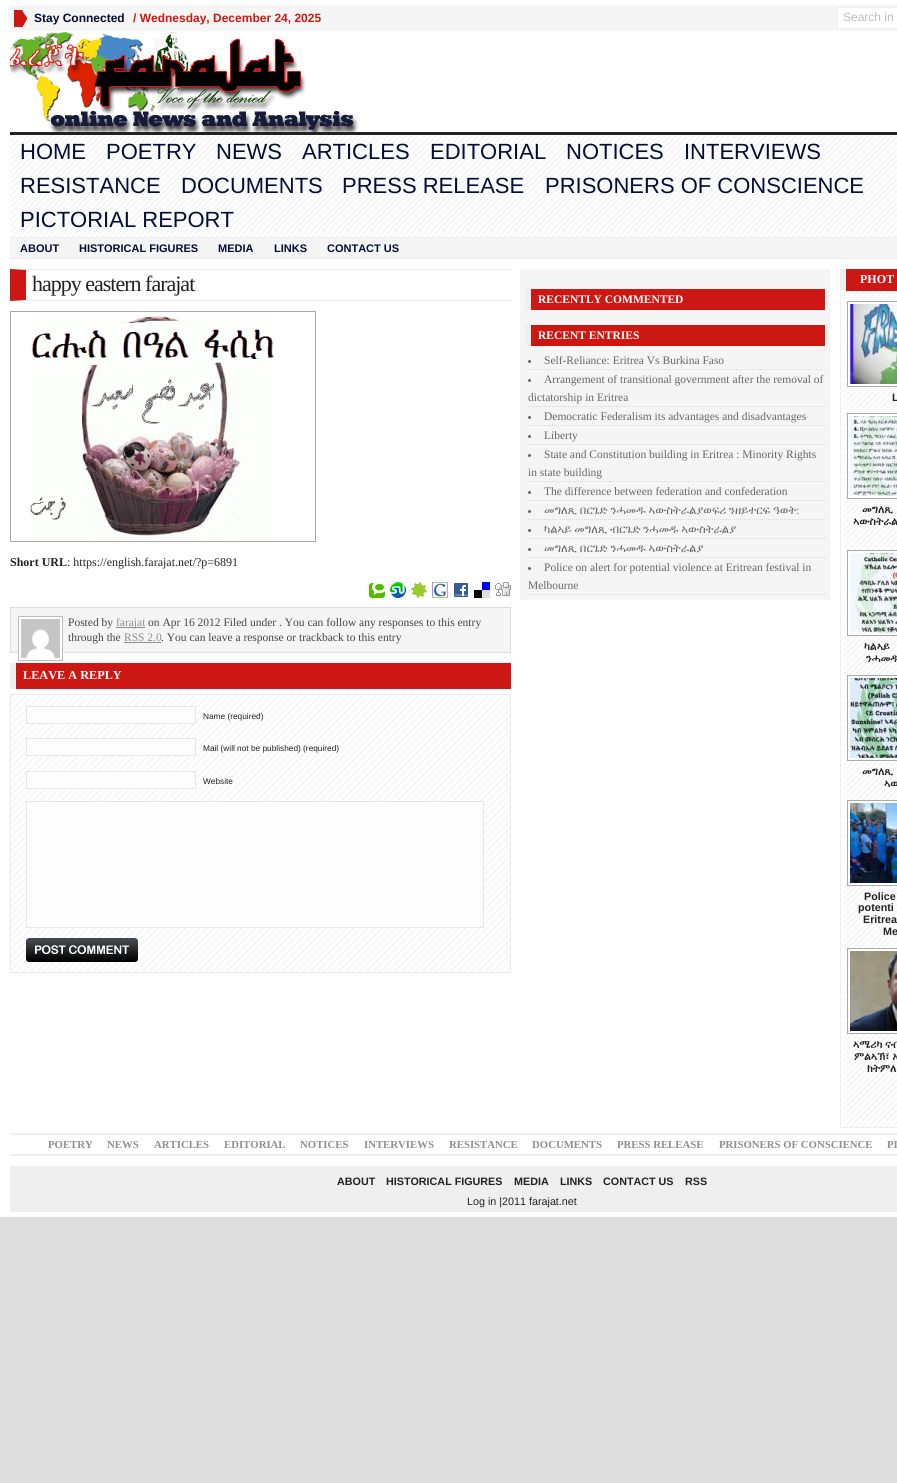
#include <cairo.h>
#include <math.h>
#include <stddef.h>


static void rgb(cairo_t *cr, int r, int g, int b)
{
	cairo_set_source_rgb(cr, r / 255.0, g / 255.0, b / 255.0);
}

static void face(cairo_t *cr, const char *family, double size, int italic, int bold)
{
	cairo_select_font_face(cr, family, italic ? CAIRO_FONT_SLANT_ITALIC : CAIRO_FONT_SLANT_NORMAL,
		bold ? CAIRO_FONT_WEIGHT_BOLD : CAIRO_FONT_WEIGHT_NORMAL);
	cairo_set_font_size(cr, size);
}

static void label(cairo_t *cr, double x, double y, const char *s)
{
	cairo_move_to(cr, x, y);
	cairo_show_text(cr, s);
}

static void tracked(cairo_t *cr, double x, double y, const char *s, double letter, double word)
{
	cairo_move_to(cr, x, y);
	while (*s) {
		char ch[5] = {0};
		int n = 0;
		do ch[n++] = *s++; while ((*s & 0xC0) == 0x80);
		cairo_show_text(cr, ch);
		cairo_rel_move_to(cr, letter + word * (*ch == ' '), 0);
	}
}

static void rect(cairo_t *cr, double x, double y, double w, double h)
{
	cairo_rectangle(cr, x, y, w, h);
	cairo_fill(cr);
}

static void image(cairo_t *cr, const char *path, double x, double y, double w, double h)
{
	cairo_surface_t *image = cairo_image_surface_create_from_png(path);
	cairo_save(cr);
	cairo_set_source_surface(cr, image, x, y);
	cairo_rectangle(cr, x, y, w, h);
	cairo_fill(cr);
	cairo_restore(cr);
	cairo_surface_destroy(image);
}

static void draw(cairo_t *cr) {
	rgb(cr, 221, 221, 221);
	cairo_paint(cr);
	rgb(cr, 255, 255, 255);
	rect(cr, 0, 0, 897, 1217);
	rgb(cr, 245, 245, 245);
	rect(cr, 10, 5, 887, 26);
	image(cr, "image0.png", 14, 10, 14, 17);
	face(cr, "Liberation Sans", 12, 0, 1);
	rgb(cr, 1, 13, 55);
	label(cr, 34, 22, "Stay Connected");
	rgb(cr, 205, 23, 19);
	label(cr, 133, 22, "/ Wednesday, December 24, 2025");
	rgb(cr, 255, 255, 255);
	cairo_rectangle(cr, 837.5, 7.5, 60, 21);
	cairo_fill_preserve(cr);
	rgb(cr, 239, 239, 239);
	cairo_set_line_width(cr, 1);
	cairo_stroke(cr);
	face(cr, "Liberation Sans", 12, 0, 0);
	rgb(cr, 188, 188, 188);
	label(cr, 843, 21, "Search in");
	rgb(cr, 34, 34, 34);
	rect(cr, 10, 132, 887, 3);
	image(cr, "image1.png", 10, 32, 349, 100);
	image(cr, "image2.png", 10, 135, 887, 102);
	rgb(cr, 239, 239, 239);
	rect(cr, 10, 237, 887, 1);
	face(cr, "Liberation Sans", 22, 0, 0);
	rgb(cr, 1, 13, 55);
	label(cr, 20, 159, "HOME");
	label(cr, 106, 159, "POETRY");
	label(cr, 216, 159, "NEWS");
	label(cr, 302, 159, "ARTICLES");
	label(cr, 430, 159, "EDITORIAL");
	label(cr, 566, 159, "NOTICES");
	label(cr, 684, 159, "INTERVIEWS");
	label(cr, 20, 193, "RESISTANCE");
	label(cr, 181, 193, "DOCUMENTS");
	label(cr, 342, 193, "PRESS RELEASE");
	label(cr, 545, 193, "PRISONERS OF CONSCIENCE");
	label(cr, 20, 227, "PICTORIAL REPORT");
	rgb(cr, 245, 245, 245);
	rect(cr, 10, 238, 887, 20);
	rgb(cr, 239, 239, 239);
	rect(cr, 10, 258, 887, 1);
	face(cr, "Liberation Sans", 11, 0, 1);
	rgb(cr, 1, 13, 55);
	label(cr, 20, 252, "ABOUT");
	label(cr, 79, 252, "HISTORICAL FIGURES");
	label(cr, 218, 252, "MEDIA");
	label(cr, 274, 252, "LINKS");
	label(cr, 327, 252, "CONTACT US");
	rgb(cr, 239, 239, 239);
	cairo_new_path(cr);
	cairo_move_to(cr, 10, 269);
	cairo_line_to(cr, 511, 269);
	cairo_line_to(cr, 511, 270);
	cairo_line_to(cr, 26, 270);
	cairo_close_path(cr);
	cairo_fill(cr);
	cairo_new_path(cr);
	cairo_move_to(cr, 511, 301);
	cairo_line_to(cr, 10, 301);
	cairo_line_to(cr, 26, 300);
	cairo_line_to(cr, 511, 300);
	cairo_close_path(cr);
	cairo_fill(cr);
	rgb(cr, 205, 23, 19);
	cairo_new_path(cr);
	cairo_move_to(cr, 10, 301);
	cairo_line_to(cr, 10, 269);
	cairo_line_to(cr, 26, 270);
	cairo_line_to(cr, 26, 300);
	cairo_close_path(cr);
	cairo_fill(cr);
	face(cr, "Liberation Serif", 22, 0, 0);
	rgb(cr, 34, 34, 34);
	tracked(cr, 32, 291, "happy eastern farajat", -1, 0);
	cairo_rectangle(cr, 10.5, 311.5, 305, 230);
	rgb(cr, 170, 170, 170);
	cairo_stroke(cr);
	image(cr, "image3.png", 30, 316, 244, 223);
	face(cr, "Liberation Serif", 12, 0, 1);
	rgb(cr, 34, 34, 34);
	label(cr, 10, 566, "Short URL");
	face(cr, "Liberation Serif", 12, 0, 0);
	label(cr, 67, 566, ": https://english.farajat.net/?p=6891");
	image(cr, "image4.png", 369, 583, 16, 15);
	image(cr, "image5.png", 390, 582, 16, 16);
	image(cr, "image6.png", 411, 582, 16, 16);
	image(cr, "image7.png", 432, 582, 16, 16);
	image(cr, "image8.png", 454, 583, 14, 14);
	image(cr, "image9.png", 474, 582, 16, 16);
	image(cr, "image10.png", 495, 582, 16, 14);
	rgb(cr, 245, 245, 245);
	cairo_rectangle(cr, 10.5, 607.5, 500, 45);
	cairo_fill_preserve(cr);
	rgb(cr, 221, 221, 221);
	cairo_stroke(cr);
	rgb(cr, 255, 255, 255);
	rect(cr, 19, 617, 43, 36);
	cairo_rectangle(cr, 18.5, 616.5, 44, 44);
	rgb(cr, 187, 187, 187);
	cairo_stroke(cr);
	image(cr, "image11.png", 21, 619, 39, 39);
	face(cr, "Liberation Serif", 11.5, 0, 0);
	rgb(cr, 68, 68, 68);
	label(cr, 68, 626, "Posted by");
	rgb(cr, 143, 143, 143);
	rect(cr, 116, 627, 29, 1);
	label(cr, 116, 626, "farajat");
	rgb(cr, 68, 68, 68);
	label(cr, 148, 626, "on Apr 16 2012 Filed under . You can follow any responses to this entry");
	label(cr, 68, 641, "through the");
	rgb(cr, 143, 143, 143);
	label(cr, 124, 641, "RSS 2.0");
	rect(cr, 124, 642, 37, 1);
	rgb(cr, 68, 68, 68);
	label(cr, 161, 641, ". You can leave a response or trackback to this entry");
	rgb(cr, 205, 23, 19);
	rect(cr, 16, 663, 495, 26);
	rgb(cr, 239, 239, 239);
	rect(cr, 10, 663, 6, 26);
	face(cr, "Liberation Serif", 12.25, 0, 1);
	rgb(cr, 255, 255, 255);
	label(cr, 23, 679, "LEAVE A REPLY");
	image(cr, "image12.png", 11, 695, 499, 277);
	cairo_rectangle(cr, 10.5, 694.5, 500, 278);
	rgb(cr, 236, 236, 236);
	cairo_stroke(cr);
	rgb(cr, 254, 254, 254);
	cairo_rectangle(cr, 26.5, 706.5, 169, 17);
	cairo_fill_preserve(cr);
	rgb(cr, 230, 230, 230);
	cairo_stroke(cr);
	face(cr, "Liberation Sans", 8.3, 0, 0);
	rgb(cr, 34, 34, 34);
	label(cr, 203, 719, "Name (required)");
	rgb(cr, 254, 254, 254);
	cairo_rectangle(cr, 26.5, 738.5, 169, 17);
	cairo_fill_preserve(cr);
	rgb(cr, 230, 230, 230);
	cairo_stroke(cr);
	rgb(cr, 34, 34, 34);
	label(cr, 203, 751, "Mail (will not be published) (required)");
	rgb(cr, 254, 254, 254);
	cairo_rectangle(cr, 26.5, 771.5, 169, 17);
	cairo_fill_preserve(cr);
	rgb(cr, 230, 230, 230);
	cairo_stroke(cr);
	rgb(cr, 34, 34, 34);
	label(cr, 203, 784, "Website");
	rgb(cr, 254, 254, 254);
	cairo_rectangle(cr, 26.5, 801.5, 457, 126);
	cairo_fill_preserve(cr);
	rgb(cr, 230, 230, 230);
	cairo_stroke(cr);
	image(cr, "image13.png", 26, 938, 112, 24);
	rgb(cr, 245, 245, 245);
	rect(cr, 520, 269, 310, 331);
	rgb(cr, 205, 23, 19);
	rect(cr, 531, 289, 294, 21);
	rgb(cr, 239, 239, 239);
	rect(cr, 525, 289, 6, 21);
	face(cr, "Liberation Serif", 11.5, 0, 1);
	rgb(cr, 255, 255, 255);
	label(cr, 538, 303, "RECENTLY COMMENTED");
	rgb(cr, 205, 23, 19);
	rect(cr, 531, 325, 294, 21);
	rgb(cr, 239, 239, 239);
	rect(cr, 525, 325, 6, 21);
	rgb(cr, 255, 255, 255);
	label(cr, 538, 339, "RECENT ENTRIES");
	cairo_new_path(cr);
	cairo_move_to(cr, 528, 369.5);
	cairo_line_to(cr, 825, 369.5);
	rgb(cr, 211, 217, 235);
	cairo_set_dash(cr, (double[]){1, 1}, 2, 0);
	cairo_stroke(cr);
	rgb(cr, 102, 102, 102);
	cairo_arc(cr, 529.5, 361.5, 1.5, 0, 2 * M_PI);
	cairo_fill(cr);
	face(cr, "Liberation Serif", 11.5, 0, 0);
	label(cr, 544, 364, "Self-Reliance: Eritrea Vs Burkina Faso");
	cairo_new_path(cr);
	cairo_move_to(cr, 528, 406.5);
	cairo_line_to(cr, 825, 406.5);
	rgb(cr, 211, 217, 235);
	cairo_stroke(cr);
	rgb(cr, 102, 102, 102);
	cairo_arc(cr, 529.5, 380.5, 1.5, 0, 2 * M_PI);
	cairo_fill(cr);
	label(cr, 544, 383, "Arrangement of transitional government after the removal of");
	label(cr, 528, 401, "dictatorship in Eritrea");
	cairo_new_path(cr);
	cairo_move_to(cr, 528, 425.5);
	cairo_line_to(cr, 825, 425.5);
	rgb(cr, 211, 217, 235);
	cairo_stroke(cr);
	rgb(cr, 102, 102, 102);
	cairo_arc(cr, 529.5, 417.5, 1.5, 0, 2 * M_PI);
	cairo_fill(cr);
	label(cr, 544, 420, "Democratic Federalism its advantages and disadvantages");
	cairo_new_path(cr);
	cairo_move_to(cr, 528, 444.5);
	cairo_line_to(cr, 825, 444.5);
	rgb(cr, 211, 217, 235);
	cairo_stroke(cr);
	rgb(cr, 102, 102, 102);
	cairo_arc(cr, 529.5, 436.5, 1.5, 0, 2 * M_PI);
	cairo_fill(cr);
	label(cr, 544, 439, "Liberty");
	cairo_new_path(cr);
	cairo_move_to(cr, 528, 481.5);
	cairo_line_to(cr, 825, 481.5);
	rgb(cr, 211, 217, 235);
	cairo_stroke(cr);
	rgb(cr, 102, 102, 102);
	cairo_arc(cr, 529.5, 455.5, 1.5, 0, 2 * M_PI);
	cairo_fill(cr);
	label(cr, 544, 458, "State and Constitution building in Eritrea : Minority Rights");
	label(cr, 528, 476, "in state building");
	cairo_new_path(cr);
	cairo_move_to(cr, 528, 500.5);
	cairo_line_to(cr, 825, 500.5);
	rgb(cr, 211, 217, 235);
	cairo_stroke(cr);
	rgb(cr, 102, 102, 102);
	cairo_arc(cr, 529.5, 492.5, 1.5, 0, 2 * M_PI);
	cairo_fill(cr);
	label(cr, 544, 495, "The difference between federation and confederation");
	cairo_new_path(cr);
	cairo_move_to(cr, 528, 519.5);
	cairo_line_to(cr, 825, 519.5);
	rgb(cr, 211, 217, 235);
	cairo_stroke(cr);
	rgb(cr, 102, 102, 102);
	cairo_arc(cr, 529.5, 511.5, 1.5, 0, 2 * M_PI);
	cairo_fill(cr);
	face(cr, "FreeSerif", 11.5, 0, 0);
	label(cr, 544, 514, "መግለጺ በርጌድ ንሓመዱ ኣውስትራልያወፍሪ ንዘይተርፍ ዓወት:");
	cairo_new_path(cr);
	cairo_move_to(cr, 528, 538.5);
	cairo_line_to(cr, 825, 538.5);
	rgb(cr, 211, 217, 235);
	cairo_stroke(cr);
	rgb(cr, 102, 102, 102);
	cairo_arc(cr, 529.5, 530.5, 1.5, 0, 2 * M_PI);
	cairo_fill(cr);
	label(cr, 544, 533, "ካልኣይ መግለጺ ብርጌድ ንሓመዱ ኣውስትራልያ");
	cairo_new_path(cr);
	cairo_move_to(cr, 528, 557.5);
	cairo_line_to(cr, 825, 557.5);
	rgb(cr, 211, 217, 235);
	cairo_stroke(cr);
	rgb(cr, 102, 102, 102);
	cairo_arc(cr, 529.5, 549.5, 1.5, 0, 2 * M_PI);
	cairo_fill(cr);
	label(cr, 544, 552, "መግለጺ በርጌድ ንሓመዱ ኣውስትራልያ");
	cairo_new_path(cr);
	cairo_move_to(cr, 528, 594.5);
	cairo_line_to(cr, 825, 594.5);
	rgb(cr, 211, 217, 235);
	cairo_stroke(cr);
	rgb(cr, 102, 102, 102);
	cairo_arc(cr, 529.5, 568.5, 1.5, 0, 2 * M_PI);
	cairo_fill(cr);
	face(cr, "Liberation Serif", 11.5, 0, 0);
	label(cr, 544, 571, "Police on alert for potential violence at Eritrean festival in");
	label(cr, 528, 589, "Melbourne");
	image(cr, "image14.png", 840, 291, 57, 836);
	rgb(cr, 239, 239, 239);
	rect(cr, 840, 1127, 57, 1);
	rgb(cr, 205, 23, 19);
	rect(cr, 846, 269, 51, 22);
	rgb(cr, 239, 239, 239);
	rect(cr, 840, 269, 6, 22);
	face(cr, "Liberation Serif", 12, 0, 1);
	rgb(cr, 255, 255, 255);
	label(cr, 860, 283, "PHOT");
	cairo_rectangle(cr, 847.5, 301.5, 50, 85);
	cairo_fill_preserve(cr);
	rgb(cr, 170, 170, 170);
	cairo_set_dash(cr, NULL, 0, 0);
	cairo_stroke(cr);
	image(cr, "image15.png", 850, 304, 47, 80);
	face(cr, "Liberation Sans", 10.75, 0, 1);
	rgb(cr, 34, 34, 34);
	label(cr, 892, 401, "L");
	rgb(cr, 255, 255, 255);
	cairo_rectangle(cr, 847.5, 413.5, 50, 85);
	cairo_fill_preserve(cr);
	rgb(cr, 170, 170, 170);
	cairo_stroke(cr);
	image(cr, "image16.png", 850, 416, 47, 80);
	face(cr, "FreeSerif", 10.75, 0, 1);
	rgb(cr, 34, 34, 34);
	label(cr, 862, 513, "መግለጺ");
	label(cr, 853, 525, "ኣውስትራል");
	rgb(cr, 255, 255, 255);
	cairo_rectangle(cr, 847.5, 550.5, 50, 85);
	cairo_fill_preserve(cr);
	rgb(cr, 170, 170, 170);
	cairo_stroke(cr);
	image(cr, "image17.png", 850, 553, 47, 80);
	rgb(cr, 34, 34, 34);
	label(cr, 864, 650, "ካልኣይ");
	label(cr, 866, 662, "ንሓመዱ");
	rgb(cr, 255, 255, 255);
	cairo_rectangle(cr, 847.5, 675.5, 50, 85);
	cairo_fill_preserve(cr);
	rgb(cr, 170, 170, 170);
	cairo_stroke(cr);
	image(cr, "image18.png", 850, 678, 47, 80);
	rgb(cr, 34, 34, 34);
	label(cr, 862, 775, "መግለጺ");
	label(cr, 884, 787, "ኣው");
	rgb(cr, 255, 255, 255);
	cairo_rectangle(cr, 847.5, 800.5, 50, 85);
	cairo_fill_preserve(cr);
	rgb(cr, 170, 170, 170);
	cairo_stroke(cr);
	image(cr, "image19.png", 850, 803, 47, 80);
	face(cr, "Liberation Sans", 10.75, 0, 1);
	rgb(cr, 34, 34, 34);
	label(cr, 864, 900, "Police");
	label(cr, 858, 911, "potenti");
	label(cr, 863, 923, "Eritrea");
	label(cr, 883, 935, "Me");
	rgb(cr, 255, 255, 255);
	cairo_rectangle(cr, 847.5, 948.5, 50, 85);
	cairo_fill_preserve(cr);
	rgb(cr, 170, 170, 170);
	cairo_stroke(cr);
	image(cr, "image20.png", 850, 951, 47, 80);
	face(cr, "FreeSerif", 10.75, 0, 1);
	rgb(cr, 34, 34, 34);
	label(cr, 853, 1048, "ኣሜሪካ ናብ");
	label(cr, 854, 1060, "ምልኣኽ፣ ኤ");
	label(cr, 867, 1072, "ክትምለ");
	rgb(cr, 239, 239, 239);
	rect(cr, 10, 1133, 887, 2);
	rect(cr, 10, 1154, 887, 2);
	face(cr, "Liberation Serif", 10.75, 0, 1);
	rgb(cr, 143, 143, 143);
	label(cr, 48, 1148, "POETRY");
	label(cr, 107, 1148, "NEWS");
	label(cr, 154, 1148, "ARTICLES");
	label(cr, 224, 1148, "EDITORIAL");
	label(cr, 300, 1148, "NOTICES");
	label(cr, 364, 1148, "INTERVIEWS");
	label(cr, 449, 1148, "RESISTANCE");
	label(cr, 532, 1148, "DOCUMENTS");
	label(cr, 617, 1148, "PRESS RELEASE");
	label(cr, 719, 1148, "PRISONERS OF CONSCIENCE");
	label(cr, 887, 1148, "PI");
	rgb(cr, 239, 239, 239);
	rect(cr, 10, 1166, 887, 46);
	face(cr, "Liberation Sans", 10.75, 0, 1);
	rgb(cr, 34, 34, 34);
	label(cr, 337, 1185, "ABOUT");
	label(cr, 386, 1185, "HISTORICAL FIGURES");
	label(cr, 514, 1185, "MEDIA");
	label(cr, 560, 1185, "LINKS");
	label(cr, 603, 1185, "CONTACT US");
	label(cr, 685, 1185, "RSS");
	face(cr, "Liberation Sans", 10.75, 0, 0);
	label(cr, 467, 1205, "Log in |2011 farajat.net");
}

int main(void) {
	cairo_surface_t *surface = cairo_image_surface_create(CAIRO_FORMAT_RGB24, 897, 1483);
	cairo_t *cr = cairo_create(surface);
	cairo_font_options_t *options = cairo_font_options_create();
	cairo_font_options_set_hint_metrics(options, CAIRO_HINT_METRICS_OFF);
	cairo_font_options_set_hint_style(options, CAIRO_HINT_STYLE_NONE);
	cairo_set_font_options(cr, options);
	cairo_set_miter_limit(cr, 4);
	draw(cr);
	cairo_surface_write_to_png(surface, "render.png");
	cairo_font_options_destroy(options);
	cairo_destroy(cr);
	cairo_surface_destroy(surface);
	return 0;
}
